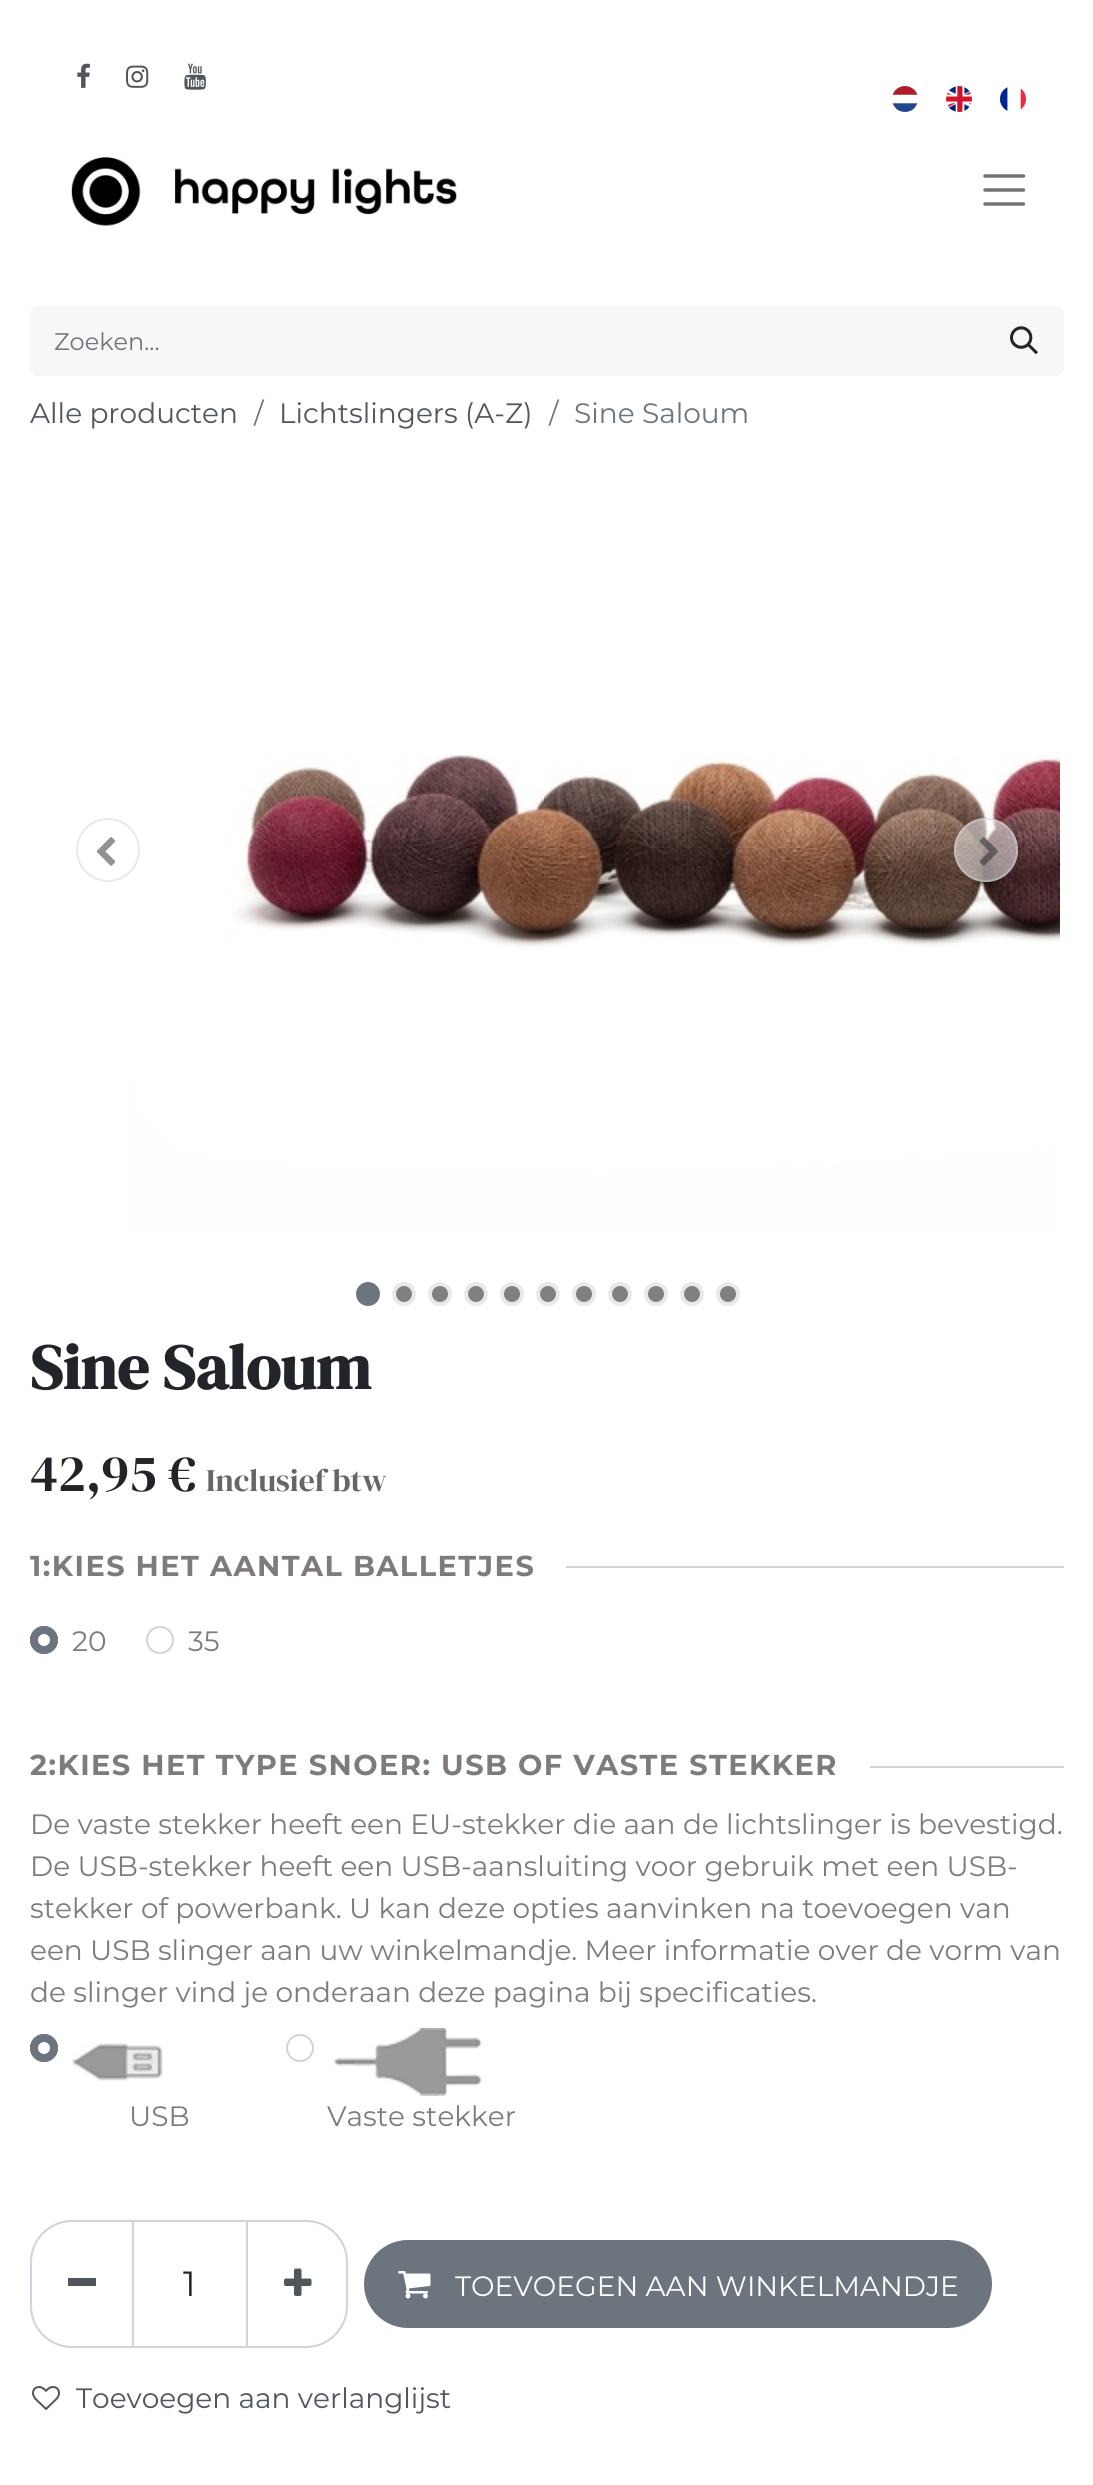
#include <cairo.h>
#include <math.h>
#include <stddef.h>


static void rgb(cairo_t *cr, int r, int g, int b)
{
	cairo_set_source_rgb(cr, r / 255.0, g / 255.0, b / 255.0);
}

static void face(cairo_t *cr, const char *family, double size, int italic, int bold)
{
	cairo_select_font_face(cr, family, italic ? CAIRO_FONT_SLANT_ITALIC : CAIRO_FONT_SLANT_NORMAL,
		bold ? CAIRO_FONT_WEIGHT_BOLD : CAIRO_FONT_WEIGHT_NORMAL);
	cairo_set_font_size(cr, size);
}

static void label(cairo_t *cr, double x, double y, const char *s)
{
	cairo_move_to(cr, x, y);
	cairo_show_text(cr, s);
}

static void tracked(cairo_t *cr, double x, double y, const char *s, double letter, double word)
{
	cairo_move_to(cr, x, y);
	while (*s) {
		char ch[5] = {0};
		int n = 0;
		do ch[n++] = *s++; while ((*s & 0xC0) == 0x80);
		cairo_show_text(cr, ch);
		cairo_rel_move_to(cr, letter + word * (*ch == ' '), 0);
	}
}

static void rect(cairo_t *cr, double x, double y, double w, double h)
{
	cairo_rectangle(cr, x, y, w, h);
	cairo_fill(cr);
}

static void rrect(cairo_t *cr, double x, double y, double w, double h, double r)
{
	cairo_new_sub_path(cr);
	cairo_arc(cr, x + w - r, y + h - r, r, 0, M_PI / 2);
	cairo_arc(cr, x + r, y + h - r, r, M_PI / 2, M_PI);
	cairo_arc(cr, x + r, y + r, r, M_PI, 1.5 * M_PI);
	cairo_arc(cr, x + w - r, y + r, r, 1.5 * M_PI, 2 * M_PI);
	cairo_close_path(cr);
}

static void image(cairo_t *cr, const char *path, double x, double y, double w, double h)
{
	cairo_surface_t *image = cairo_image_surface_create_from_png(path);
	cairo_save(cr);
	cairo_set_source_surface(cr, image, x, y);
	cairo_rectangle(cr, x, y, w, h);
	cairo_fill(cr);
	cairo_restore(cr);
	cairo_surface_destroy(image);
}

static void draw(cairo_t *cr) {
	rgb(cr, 255, 255, 255);
	cairo_paint(cr);
	image(cr, "image0.png", 77, 63, 13, 25);
	image(cr, "image1.png", 126, 65, 23, 23);
	image(cr, "image2.png", 184, 63, 22, 27);
	image(cr, "image3.png", 892, 86, 26, 26);
	image(cr, "image4.png", 946, 86, 26, 26);
	image(cr, "image5.png", 1000, 87, 26, 24);
	image(cr, "image6.png", 71, 157, 386, 69);
	cairo_new_path(cr);
	cairo_move_to(cr, 985, 176);
	cairo_line_to(cr, 1023.5, 176);
	cairo_move_to(cr, 985, 190);
	cairo_line_to(cr, 1023.5, 190);
	cairo_move_to(cr, 985, 204);
	cairo_line_to(cr, 1023.5, 204);
	rgb(cr, 115, 115, 115);
	cairo_set_line_width(cr, 3.5);
	cairo_set_line_cap(cr, CAIRO_LINE_CAP_ROUND);
	cairo_stroke(cr);
	rgb(cr, 247, 247, 247);
	cairo_new_path(cr);
	cairo_move_to(cr, 38, 306);
	cairo_line_to(cr, 986, 306);
	cairo_line_to(cr, 986, 376);
	cairo_line_to(cr, 38, 376);
	cairo_curve_to(cr, 33.5, 376, 30, 372.5, 30, 368);
	cairo_line_to(cr, 30, 314);
	cairo_curve_to(cr, 30, 309.5, 33.5, 306, 38, 306);
	cairo_close_path(cr);
	cairo_fill(cr);
	face(cr, "Montserrat", 24, 0, 0);
	rgb(cr, 108, 117, 125);
	label(cr, 54, 350, "Zoeken...");
	rgb(cr, 247, 247, 247);
	cairo_new_path(cr);
	cairo_move_to(cr, 984, 306);
	cairo_line_to(cr, 1056, 306);
	cairo_curve_to(cr, 1060.5, 306, 1064, 309.5, 1064, 314);
	cairo_line_to(cr, 1064, 368);
	cairo_curve_to(cr, 1064, 372.5, 1060.5, 376, 1056, 376);
	cairo_line_to(cr, 984, 376);
	cairo_close_path(cr);
	cairo_fill(cr);
	image(cr, "image7.png", 1010, 326, 28, 29);
	face(cr, "Montserrat", 28, 0, 0);
	rgb(cr, 80, 86, 92);
	label(cr, 30, 423, "Alle producten");
	rgb(cr, 108, 117, 125);
	label(cr, 254, 423, "/");
	rgb(cr, 80, 86, 92);
	label(cr, 279, 423, "Lichtslingers (A-Z)");
	rgb(cr, 108, 117, 125);
	label(cr, 549, 423, "/");
	label(cr, 574, 423, "Sine Saloum");
	image(cr, "image9.png", 128, 754, 932, 480);
	cairo_arc(cr, 108, 850, 31, 0, 2 * M_PI);
	rgb(cr, 231, 234, 237);
	cairo_set_line_width(cr, 2);
	cairo_set_line_cap(cr, CAIRO_LINE_CAP_BUTT);
	cairo_stroke(cr);
	image(cr, "image8.png", 96, 837, 20, 29);
	cairo_set_source_rgba(cr, 1, 1, 1, 0.5);
	cairo_arc(cr, 986, 850, 32, 0, 2 * M_PI);
	cairo_fill(cr);
	cairo_arc(cr, 986, 850, 31, 0, 2 * M_PI);
	cairo_set_source_rgba(cr, 0.808, 0.831, 0.855, 0.5);
	cairo_stroke(cr);
	image(cr, "image10.png", 979, 837, 19, 29);
	rgb(cr, 108, 117, 125);
	cairo_arc(cr, 368, 1294, 10, 0, 2 * M_PI);
	cairo_fill_preserve(cr);
	cairo_set_line_width(cr, 4);
	cairo_stroke(cr);
	rgb(cr, 128, 128, 128);
	cairo_arc(cr, 404, 1294, 10, 0, 2 * M_PI);
	cairo_fill_preserve(cr);
	rgb(cr, 231, 234, 237);
	cairo_stroke(cr);
	rgb(cr, 128, 128, 128);
	cairo_arc(cr, 440, 1294, 10, 0, 2 * M_PI);
	cairo_fill_preserve(cr);
	rgb(cr, 231, 234, 237);
	cairo_stroke(cr);
	rgb(cr, 128, 128, 128);
	cairo_arc(cr, 476, 1294, 10, 0, 2 * M_PI);
	cairo_fill_preserve(cr);
	rgb(cr, 231, 234, 237);
	cairo_stroke(cr);
	rgb(cr, 128, 128, 128);
	cairo_arc(cr, 512, 1294, 10, 0, 2 * M_PI);
	cairo_fill_preserve(cr);
	rgb(cr, 231, 234, 237);
	cairo_stroke(cr);
	rgb(cr, 128, 128, 128);
	cairo_arc(cr, 548, 1294, 10, 0, 2 * M_PI);
	cairo_fill_preserve(cr);
	rgb(cr, 231, 234, 237);
	cairo_stroke(cr);
	rgb(cr, 128, 128, 128);
	cairo_arc(cr, 584, 1294, 10, 0, 2 * M_PI);
	cairo_fill_preserve(cr);
	rgb(cr, 231, 234, 237);
	cairo_stroke(cr);
	rgb(cr, 128, 128, 128);
	cairo_arc(cr, 620, 1294, 10, 0, 2 * M_PI);
	cairo_fill_preserve(cr);
	rgb(cr, 231, 234, 237);
	cairo_stroke(cr);
	rgb(cr, 128, 128, 128);
	cairo_arc(cr, 656, 1294, 10, 0, 2 * M_PI);
	cairo_fill_preserve(cr);
	rgb(cr, 231, 234, 237);
	cairo_stroke(cr);
	rgb(cr, 128, 128, 128);
	cairo_arc(cr, 692, 1294, 10, 0, 2 * M_PI);
	cairo_fill_preserve(cr);
	rgb(cr, 231, 234, 237);
	cairo_stroke(cr);
	rgb(cr, 128, 128, 128);
	cairo_arc(cr, 728, 1294, 10, 0, 2 * M_PI);
	cairo_fill_preserve(cr);
	rgb(cr, 231, 234, 237);
	cairo_stroke(cr);
	face(cr, "DM Serif Display", 63, 0, 1);
	rgb(cr, 33, 37, 41);
	label(cr, 30, 1389, "Sine Saloum");
	face(cr, "DM Serif Display", 52, 0, 0);
	label(cr, 30, 1491, "42,95 €");
	face(cr, "DM Serif Display", 31.5, 0, 0);
	rgb(cr, 100, 102, 105);
	label(cr, 206, 1491, "Inclusief btw");
	face(cr, "Montserrat", 28.8, 0, 1);
	rgb(cr, 127, 123, 123);
	tracked(cr, 30, 1576, "1:KIES HET AANTAL BALLETJES", 1.45, 0);
	rgb(cr, 206, 212, 218);
	rect(cr, 566, 1566, 498, 2);
	rgb(cr, 108, 117, 125);
	cairo_new_path(cr);
	cairo_arc(cr, 44, 1640, 14, 0, 2 * M_PI);
	cairo_fill(cr);
	rgb(cr, 255, 255, 255);
	cairo_arc(cr, 44, 1640, 6, 0, 2 * M_PI);
	cairo_fill(cr);
	cairo_arc(cr, 44, 1640, 13, 0, 2 * M_PI);
	rgb(cr, 108, 117, 125);
	cairo_set_line_width(cr, 2);
	cairo_stroke(cr);
	face(cr, "Montserrat", 28, 0, 0);
	rgb(cr, 127, 123, 123);
	label(cr, 72, 1651, "20");
	cairo_new_path(cr);
	cairo_arc(cr, 160, 1640, 13, 0, 2 * M_PI);
	rgb(cr, 206, 212, 218);
	cairo_stroke(cr);
	rgb(cr, 127, 123, 123);
	label(cr, 188, 1651, "35");
	face(cr, "Montserrat", 28.8, 0, 1);
	tracked(cr, 30, 1775, "2:KIES HET TYPE SNOER: USB OF VASTE STEKKER", 1.45, 0);
	rgb(cr, 206, 212, 218);
	rect(cr, 870, 1766, 194, 2);
	face(cr, "Montserrat", 28, 0, 0);
	rgb(cr, 127, 123, 123);
	label(cr, 30, 1834, "De vaste stekker heeft een EU-stekker die aan de lichtslinger is bevestigd.");
	label(cr, 30, 1876, "De USB-stekker heeft een USB-aansluiting voor gebruik met een USB-");
	label(cr, 30, 1918, "stekker of powerbank. U kan deze opties aanvinken na toevoegen van");
	label(cr, 30, 1960, "een USB slinger aan uw winkelmandje. Meer informatie over de vorm van");
	label(cr, 30, 2002, "de slinger vind je onderaan deze pagina bij specificaties.");
	rgb(cr, 108, 117, 125);
	cairo_new_path(cr);
	cairo_arc(cr, 44, 2048, 14, 0, 2 * M_PI);
	cairo_fill(cr);
	rgb(cr, 255, 255, 255);
	cairo_arc(cr, 44, 2048, 6, 0, 2 * M_PI);
	cairo_fill(cr);
	cairo_arc(cr, 44, 2048, 13, 0, 2 * M_PI);
	rgb(cr, 108, 117, 125);
	cairo_stroke(cr);
	image(cr, "image11.png", 72, 2043, 91, 38);
	rgb(cr, 127, 123, 123);
	label(cr, 129, 2126, "USB");
	cairo_new_path(cr);
	cairo_arc(cr, 300, 2048, 13, 0, 2 * M_PI);
	rgb(cr, 206, 212, 218);
	cairo_stroke(cr);
	image(cr, "image12.png", 334, 2028, 149, 68);
	rgb(cr, 127, 123, 123);
	label(cr, 327, 2126, "Vaste stekker");
	cairo_rectangle(cr, 133, 2221, 114, 126);
	rgb(cr, 206, 212, 218);
	cairo_stroke(cr);
	cairo_new_path(cr);
	cairo_move_to(cr, 72, 2221);
	cairo_line_to(cr, 133, 2221);
	cairo_line_to(cr, 133, 2347);
	cairo_line_to(cr, 72, 2347);
	cairo_curve_to(cr, 49.5, 2347, 31, 2328.5, 31, 2306);
	cairo_line_to(cr, 31, 2262);
	cairo_curve_to(cr, 31, 2239.5, 49.5, 2221, 72, 2221);
	cairo_close_path(cr);
	cairo_stroke(cr);
	rgb(cr, 80, 86, 92);
	rect(cr, 68, 2278, 28, 8);
	face(cr, "Montserrat", 35, 0, 0);
	rgb(cr, 33, 37, 41);
	label(cr, 183, 2296, "1");
	cairo_new_path(cr);
	cairo_move_to(cr, 247, 2221);
	cairo_line_to(cr, 306, 2221);
	cairo_curve_to(cr, 328.5, 2221, 347, 2239.5, 347, 2262);
	cairo_line_to(cr, 347, 2306);
	cairo_curve_to(cr, 347, 2328.5, 328.5, 2347, 306, 2347);
	cairo_line_to(cr, 247, 2347);
	cairo_close_path(cr);
	rgb(cr, 206, 212, 218);
	cairo_stroke(cr);
	image(cr, "image13.png", 284, 2268, 28, 28);
	rgb(cr, 108, 117, 125);
	rrect(cr, 365, 2241, 626, 86, 43);
	cairo_fill_preserve(cr);
	cairo_stroke(cr);
	image(cr, "image14.png", 398, 2271, 33, 28);
	face(cr, "Montserrat", 28, 0, 0);
	rgb(cr, 255, 255, 255);
	label(cr, 455, 2296, "TOEVOEGEN AAN WINKELMANDJE");
	image(cr, "image15.png", 32, 2386, 28, 24);
	rgb(cr, 80, 86, 92);
	label(cr, 76, 2408, "Toevoegen aan verlanglijst");
}

int main(void) {
	cairo_surface_t *surface = cairo_image_surface_create(CAIRO_FORMAT_RGB24, 1093, 2485);
	cairo_t *cr = cairo_create(surface);
	cairo_font_options_t *options = cairo_font_options_create();
	cairo_font_options_set_hint_metrics(options, CAIRO_HINT_METRICS_OFF);
	cairo_font_options_set_hint_style(options, CAIRO_HINT_STYLE_NONE);
	cairo_set_font_options(cr, options);
	cairo_set_miter_limit(cr, 4);
	draw(cr);
	cairo_surface_write_to_png(surface, "render.png");
	cairo_font_options_destroy(options);
	cairo_destroy(cr);
	cairo_surface_destroy(surface);
	return 0;
}
